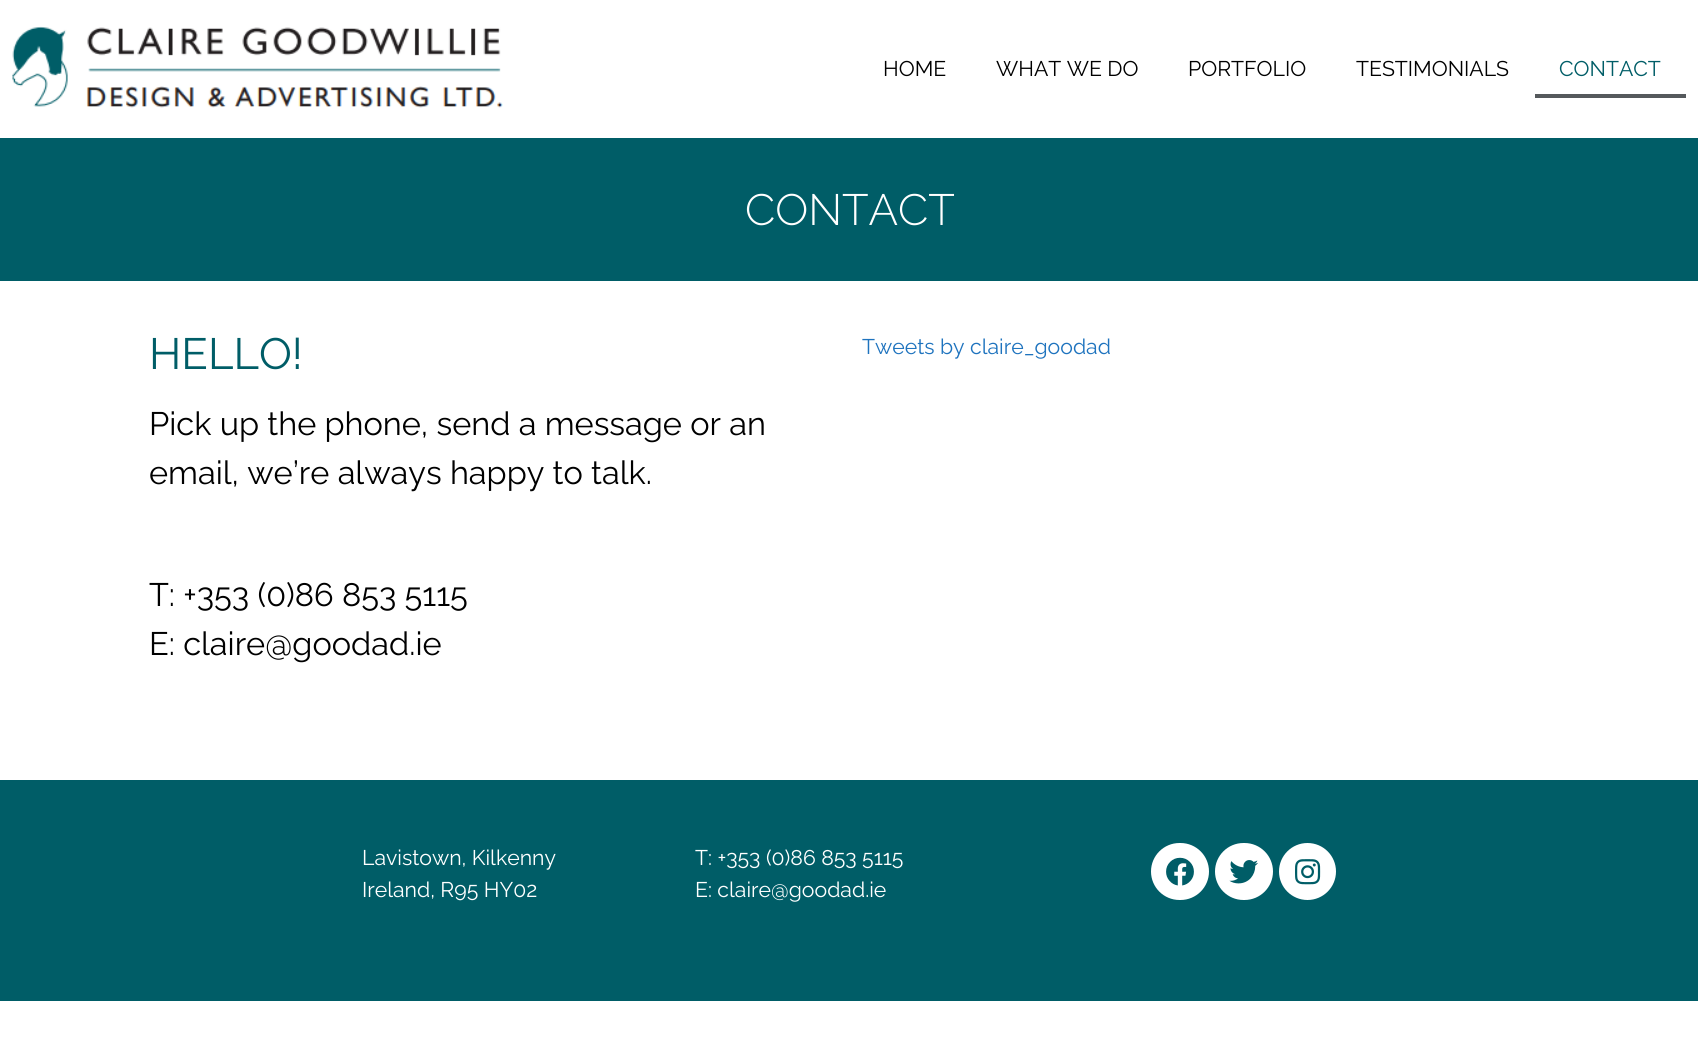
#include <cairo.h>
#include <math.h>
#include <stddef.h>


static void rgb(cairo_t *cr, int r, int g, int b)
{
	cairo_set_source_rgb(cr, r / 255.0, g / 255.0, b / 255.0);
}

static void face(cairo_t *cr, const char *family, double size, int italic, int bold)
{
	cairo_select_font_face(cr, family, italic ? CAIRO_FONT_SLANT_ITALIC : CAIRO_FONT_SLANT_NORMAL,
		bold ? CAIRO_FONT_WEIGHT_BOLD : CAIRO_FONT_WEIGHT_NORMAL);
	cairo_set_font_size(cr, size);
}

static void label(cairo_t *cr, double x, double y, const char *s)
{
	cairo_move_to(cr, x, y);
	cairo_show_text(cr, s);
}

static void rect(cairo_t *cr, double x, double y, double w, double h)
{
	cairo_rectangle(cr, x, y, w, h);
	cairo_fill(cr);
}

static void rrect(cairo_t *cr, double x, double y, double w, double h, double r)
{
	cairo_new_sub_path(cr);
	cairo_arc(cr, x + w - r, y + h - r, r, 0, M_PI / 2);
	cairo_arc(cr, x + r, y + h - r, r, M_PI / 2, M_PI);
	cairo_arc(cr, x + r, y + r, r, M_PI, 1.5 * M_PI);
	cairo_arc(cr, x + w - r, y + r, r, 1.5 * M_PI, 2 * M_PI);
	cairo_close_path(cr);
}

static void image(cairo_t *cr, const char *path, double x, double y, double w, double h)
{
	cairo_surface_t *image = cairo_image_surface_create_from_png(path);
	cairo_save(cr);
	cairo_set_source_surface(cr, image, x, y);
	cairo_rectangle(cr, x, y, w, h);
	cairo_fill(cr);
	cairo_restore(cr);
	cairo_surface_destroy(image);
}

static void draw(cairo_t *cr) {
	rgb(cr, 255, 255, 255);
	cairo_paint(cr);
	image(cr, "image0.png", 12, 26, 491, 82);
	face(cr, "Raleway", 21.25, 0, 0);
	rgb(cr, 0, 0, 0);
	label(cr, 883, 76, "HOME");
	label(cr, 996, 76, "WHAT WE DO");
	label(cr, 1188, 76, "PORTFOLIO");
	label(cr, 1356, 76, "TESTIMONIALS");
	rgb(cr, 0, 93, 103);
	label(cr, 1559, 76, "CONTACT");
	rgb(cr, 85, 89, 92);
	rect(cr, 1535, 94, 151, 4);
	rgb(cr, 0, 93, 103);
	rect(cr, 0, 138, 1698, 143);
	face(cr, "Raleway Light", 43.75, 0, 0);
	rgb(cr, 255, 255, 255);
	label(cr, 745, 225, "CONTACT");
	face(cr, "Raleway", 43.75, 0, 0);
	rgb(cr, 0, 93, 103);
	label(cr, 149, 369, "HELLO!");
	face(cr, "Raleway", 32.5, 0, 0);
	rgb(cr, 0, 0, 0);
	label(cr, 149, 435, "Pick up the phone, send a message or an");
	label(cr, 149, 484, "email, we’re always happy to talk.");
	label(cr, 149, 606, "T: +353 (0)86 853 5115");
	label(cr, 149, 655, "E: claire@goodad.ie");
	face(cr, "Raleway", 21.25, 0, 0);
	rgb(cr, 30, 115, 190);
	label(cr, 862, 354, "Tweets by claire_goodad");
	rgb(cr, 0, 93, 103);
	rect(cr, 0, 780, 1698, 221);
	rgb(cr, 255, 255, 255);
	label(cr, 362, 865, "Lavistown, Kilkenny");
	label(cr, 362, 897, "Ireland, R95 HY02");
	label(cr, 695, 865, "T: +353 (0)86 853 5115");
	label(cr, 695, 897, "E: claire@goodad.ie");
	rrect(cr, 1151, 843, 58, 57, 28.5);
	cairo_fill(cr);
	image(cr, "image1.png", 1166, 857, 28, 29);
	rrect(cr, 1215, 843, 58, 57, 28.5);
	cairo_fill(cr);
	image(cr, "image2.png", 1229, 860, 29, 24);
	cairo_arc(cr, 1307.5, 871.5, 28.5, 0, 2 * M_PI);
	cairo_fill(cr);
	image(cr, "image3.png", 1295, 859, 26, 26);
}

int main(void) {
	cairo_surface_t *surface = cairo_image_surface_create(CAIRO_FORMAT_RGB24, 1698, 1059);
	cairo_t *cr = cairo_create(surface);
	cairo_font_options_t *options = cairo_font_options_create();
	cairo_font_options_set_hint_metrics(options, CAIRO_HINT_METRICS_OFF);
	cairo_font_options_set_hint_style(options, CAIRO_HINT_STYLE_NONE);
	cairo_set_font_options(cr, options);
	cairo_set_miter_limit(cr, 4);
	draw(cr);
	cairo_surface_write_to_png(surface, "render.png");
	cairo_font_options_destroy(options);
	cairo_destroy(cr);
	cairo_surface_destroy(surface);
	return 0;
}
